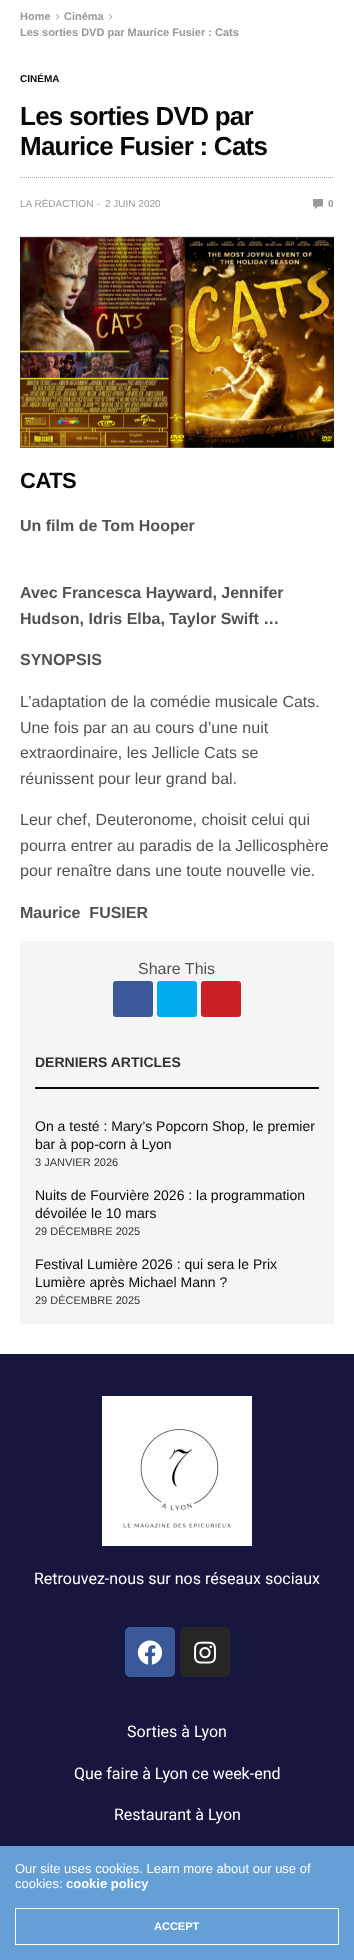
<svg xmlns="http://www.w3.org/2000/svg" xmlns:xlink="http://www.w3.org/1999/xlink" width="354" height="1960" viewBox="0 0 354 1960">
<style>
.cls-1{font:bold 11px Liberation Sans;fill:#989898}
.cls-2{font:bold 10px Liberation Sans;fill:#080808}
.cls-3{font:bold 26px Liberation Sans;letter-spacing:-0.75px;fill:#080808}
.cls-4{font:10px Liberation Sans;fill:#989898}
.cls-5{font:bold 10px Liberation Sans;fill:#989898}
.cls-6{font:bold 22px Liberation Sans;letter-spacing:-0.5px;fill:#080808}
.cls-7{font:bold 16px Liberation Sans;fill:#525252}
.cls-8{font:16px Liberation Sans;fill:#525252}
.cls-9{font:bold 14px Liberation Sans;fill:#313131}
.cls-10{font:14px Liberation Sans;fill:#080808}
.cls-11{font:11px Liberation Sans;fill:#313131}
.cls-12{font:16px Roboto;fill:#ffffff}
.cls-13{font:13px Liberation Sans;fill:#ffffff}
.cls-14{font:bold 13px Liberation Sans;fill:#ffffff}
.cls-15{font:bold 11px Liberation Sans;fill:#ffffff}
</style>
<rect width="100%" height="100%" fill="#ffffff"/>
<image xlink:href="image0.png" x="56" y="14" width="4" height="6"/>
<image xlink:href="image0.png" x="109" y="14" width="4" height="6"/>
<path fill="none" stroke="#a8a8a8" stroke-dasharray="1 1" d="M20 177.5H334"/>
<image xlink:href="image1.png" x="313" y="199" width="10" height="10"/>
<image xlink:href="image2.png" x="20" y="236" width="314" height="212"/>
<rect fill="#f5f5f5" x="20" y="941" width="314" height="383"/>
<rect fill="#3b5998" x="113" y="981" width="40" height="36" rx="3"/>
<rect fill="#00aced" x="157" y="981" width="40" height="36" rx="3"/>
<rect fill="#cb2027" x="201" y="981" width="40" height="36" rx="3"/>
<rect fill="#080808" x="35" y="1087" width="284" height="2"/>
<rect fill="#16163f" x="0" y="1354" width="354" height="492"/>
<image xlink:href="image3.png" x="102" y="1396" width="150" height="150"/>
<rect fill="#3b5998" x="125" y="1627" width="50" height="50" rx="5"/>
<image xlink:href="image4.png" x="137" y="1640" width="26" height="25"/>
<rect fill="#262626" x="180" y="1627" width="50" height="50" rx="5"/>
<image xlink:href="image5.png" x="194" y="1641" width="22" height="23"/>
<rect fill="#649fd6" x="0" y="1846" width="354" height="114"/>
<rect fill="none" stroke="#ffffff" x="15.5" y="1908.5" width="323" height="36"/>
<text class="cls-1" x="20" y="20">Home</text>
<text class="cls-1" x="64" y="20">Cinéma</text>
<text class="cls-1" x="20" y="36">Les sorties DVD par Maurice Fusier : Cats</text>
<text class="cls-2" x="20" y="82">CINÉMA</text>
<text class="cls-3"><tspan x="20" y="125">Les sorties DVD par</tspan><tspan x="20" y="155">Maurice Fusier : Cats</tspan></text>
<text class="cls-4" x="20" y="207">LA RÉDACTION</text>
<text class="cls-4" x="97" y="207">-</text>
<text class="cls-4" x="105" y="207">2 JUIN 2020</text>
<text class="cls-5" x="328" y="207">0</text>
<text class="cls-6" x="20" y="488">CATS</text>
<text class="cls-7" x="20" y="531">Un film de Tom Hooper</text>
<text class="cls-7"><tspan x="20" y="598">Avec Francesca Hayward, Jennifer</tspan><tspan x="20" y="624">Hudson, Idris Elba, Taylor Swift …</tspan></text>
<text class="cls-7" x="20" y="665">SYNOPSIS</text>
<text class="cls-8"><tspan x="20" y="707">L’adaptation de la comédie musicale Cats.</tspan><tspan x="20" y="733">Une fois par an au cours d’une nuit</tspan><tspan x="20" y="758">extraordinaire, les Jellicle Cats se</tspan><tspan x="20" y="784">réunissent pour leur grand bal.</tspan></text>
<text class="cls-8"><tspan x="20" y="825">Leur chef, Deuteronome, choisit celui qui</tspan><tspan x="20" y="851">pourra entrer au paradis de la Jellicosphère</tspan><tspan x="20" y="876">pour renaître dans une toute nouvelle vie.</tspan></text>
<text class="cls-7" xml:space="preserve" x="20" y="918">Maurice  FUSIER</text>
<text class="cls-8" x="138" y="974">Share This</text>
<text class="cls-9" x="35" y="1067">DERNIERS ARTICLES</text>
<text class="cls-10"><tspan x="35" y="1131">On a testé : Mary’s Popcorn Shop, le premier</tspan><tspan x="35" y="1149">bar à pop-corn à Lyon</tspan></text>
<text class="cls-11" x="35" y="1166">3 JANVIER 2026</text>
<text class="cls-10"><tspan x="35" y="1200">Nuits de Fourvière 2026 : la programmation</tspan><tspan x="35" y="1218">dévoilée le 10 mars</tspan></text>
<text class="cls-11" x="35" y="1235">29 DÉCEMBRE 2025</text>
<text class="cls-10"><tspan x="35" y="1269">Festival Lumière 2026 : qui sera le Prix</tspan><tspan x="35" y="1287">Lumière après Michael Mann ?</tspan></text>
<text class="cls-11" x="35" y="1304">29 DÉCEMBRE 2025</text>
<text class="cls-12" x="34" y="1584">Retrouvez-nous sur nos réseaux sociaux</text>
<text class="cls-12" x="127" y="1737">Sorties à Lyon</text>
<text class="cls-12" x="74" y="1779">Que faire à Lyon ce week-end</text>
<text class="cls-12" x="114" y="1820">Restaurant à Lyon</text>
<text class="cls-13"><tspan x="15" y="1873">Our site uses cookies. Learn more about our use of</tspan><tspan x="15" y="1888">cookies:</tspan></text>
<text class="cls-14" x="66" y="1888">cookie policy</text>
<text class="cls-15" x="154" y="1930">ACCEPT</text>
</svg>
